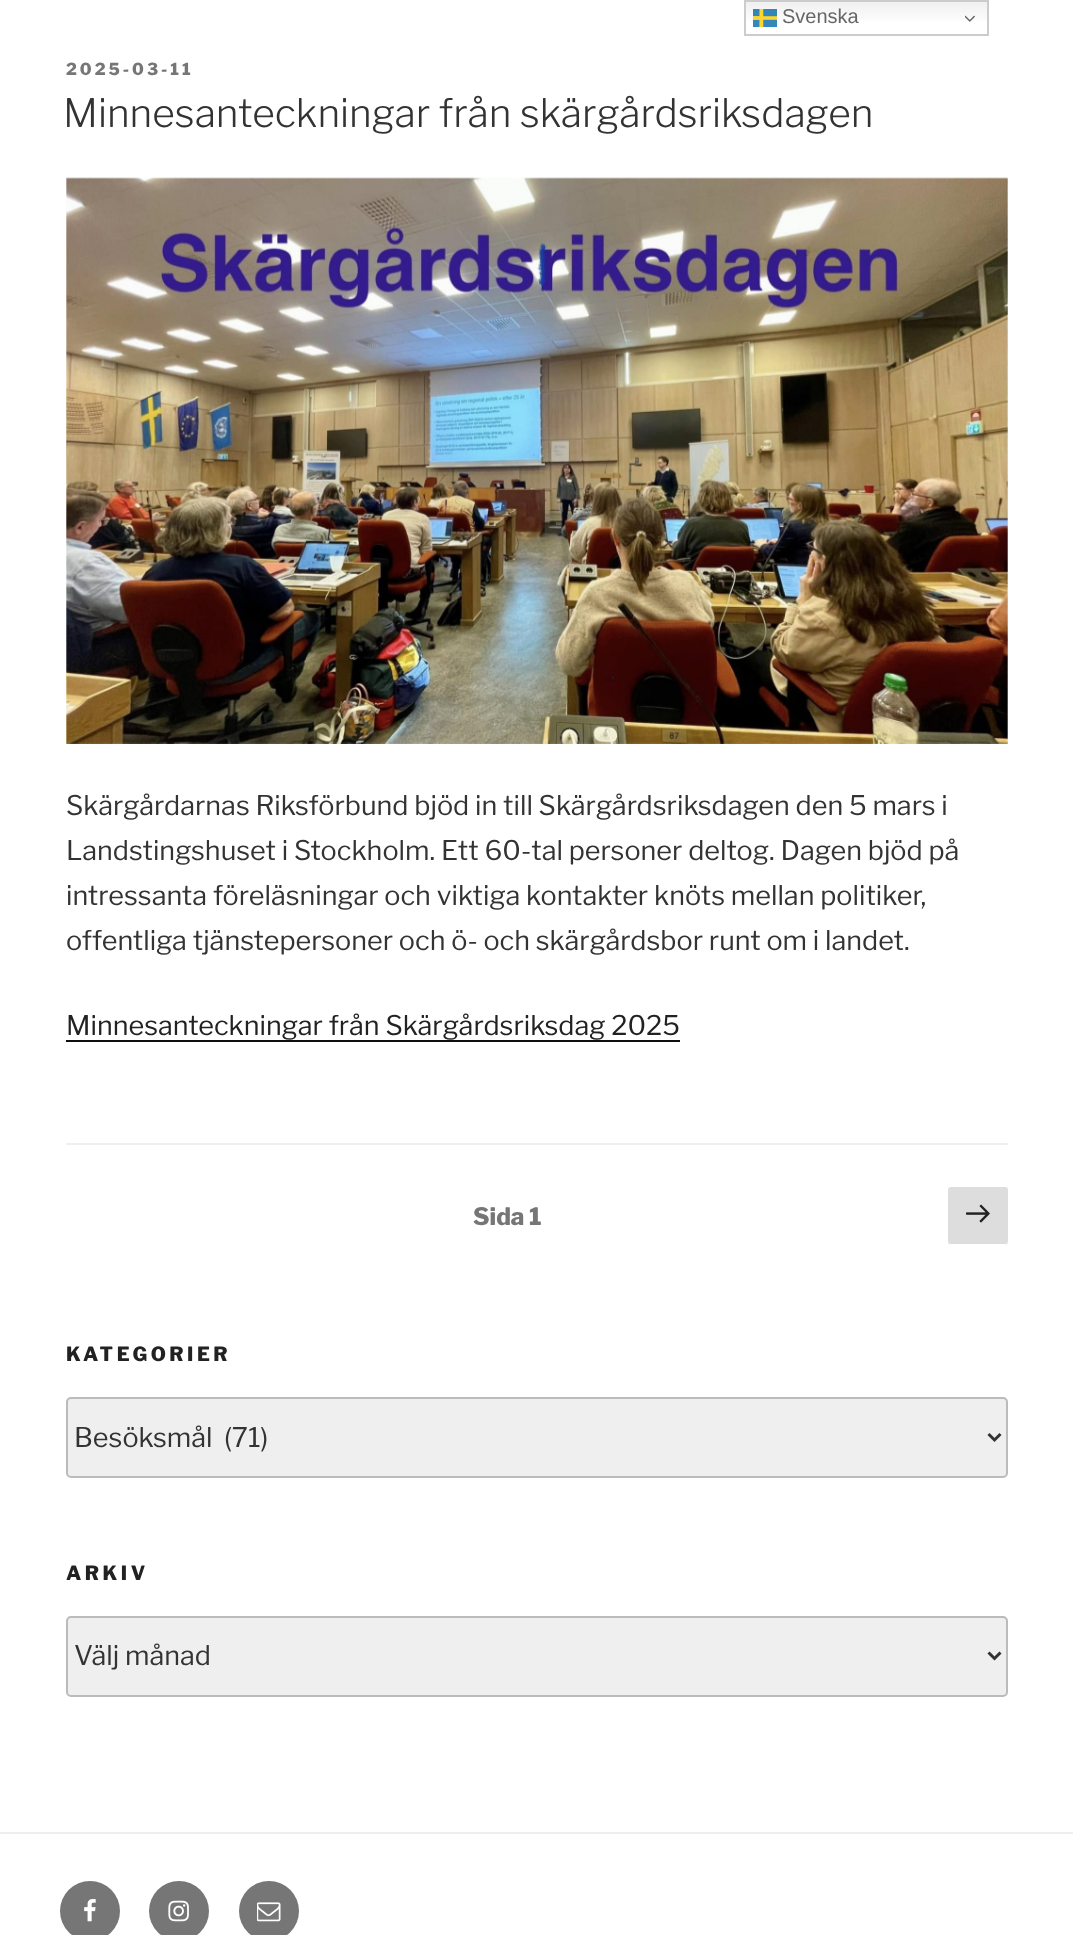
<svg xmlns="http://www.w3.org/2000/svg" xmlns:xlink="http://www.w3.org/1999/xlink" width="1073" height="1935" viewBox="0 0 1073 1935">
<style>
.cls-1{font:20px Liberation Sans;fill:#666666}
.cls-2{font:100 16.5px Libre Franklin;letter-spacing:3px;fill:#767676}
.cls-3{font:100 39px 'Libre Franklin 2';fill:#333333}
.cls-4{font:100 27px 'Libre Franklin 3';fill:#333333}
.cls-5{font:100 27px 'Libre Franklin 3';fill:#222222}
.cls-6{font:100 24px Libre Franklin;fill:#767676}
.cls-7{font:100 19.5px Libre Franklin;letter-spacing:3.5px;fill:#222222}
</style>
<defs>
<linearGradient id="g1" gradientUnits="userSpaceOnUse" x1="866" y1="0" x2="866" y2="36"><stop offset="0" stop-color="#efefef"/><stop offset="0.7" stop-color="#ffffff"/></linearGradient>
</defs>
<rect width="100%" height="100%" fill="#ffffff"/>
<rect fill="url(#g1)" x="746" y="2" width="241" height="19"/>
<rect fill="none" stroke="#cccccc" stroke-width="2" x="745" y="1" width="243" height="34"/>
<image xlink:href="image0.png" x="753" y="9" width="24" height="18"/>
<image xlink:href="image1.png" x="965" y="15" width="10" height="7"/>
<image xlink:href="image2.png" x="66" y="177" width="942" height="567"/>
<rect fill="#0f0f0f" x="66" y="1040" width="614" height="2"/>
<rect fill="#eeeeee" x="66" y="1143" width="942" height="2"/>
<rect fill="#dddddd" x="948" y="1187" width="60" height="58" rx="3"/>
<path fill="#ffffff" d="M948 1240C948 1247 953 1245 960 1245H996C1003 1245 1008 1247 1008 1240C1008 1242 1007 1244 1005 1244H951C949 1244 948 1242 948 1240Z"/>
<image xlink:href="image3.png" x="966" y="1204" width="24" height="19"/>
<rect fill="#efefef" stroke="#bbbbbb" stroke-width="2" x="67" y="1398" width="940" height="79" rx="4"/>
<path fill="none" stroke="#333333" stroke-width="3" d="M988.5 1434L994.5 1440L1000.5 1434"/>
<rect fill="#efefef" stroke="#bbbbbb" stroke-width="2" x="67" y="1617" width="940" height="79" rx="4"/>
<path fill="none" stroke="#333333" stroke-width="3" d="M988.5 1652.5L994.5 1658.5L1000.5 1652.5"/>
<rect fill="#eeeeee" x="0" y="1832" width="1073" height="2"/>
<circle fill="#767676" cx="90" cy="1911" r="30"/>
<image xlink:href="image4.png" x="84" y="1899" width="12" height="23"/>
<circle fill="#767676" cx="179" cy="1911" r="30"/>
<image xlink:href="image5.png" x="168" y="1900" width="21" height="22"/>
<circle fill="#767676" cx="269" cy="1911" r="30"/>
<image xlink:href="image6.png" x="257" y="1902" width="24" height="20"/>
<text class="cls-1" x="782" y="23">Svenska</text>
<text class="cls-2" x="66" y="75">2025-03-11</text>
<text class="cls-3" x="63" y="127">Minnesanteckningar från skärgårdsriksdagen</text>
<text class="cls-4"><tspan x="66" y="815">Skärgårdarnas Riksförbund bjöd in till Skärgårdsriksdagen den 5 mars i</tspan><tspan x="66" y="860">Landstingshuset i Stockholm. Ett 60-tal personer deltog. Dagen bjöd på</tspan><tspan x="66" y="905">intressanta föreläsningar och viktiga kontakter knöts mellan politiker,</tspan><tspan x="66" y="950">offentliga tjänstepersoner och ö- och skärgårdsbor runt om i landet.</tspan></text>
<text class="cls-5" x="66" y="1035">Minnesanteckningar från Skärgårdsriksdag 2025</text>
<text class="cls-6" x="473" y="1225">Sida</text>
<text class="cls-6" x="529" y="1225">1</text>
<text class="cls-7" x="66" y="1361">KATEGORIER</text>
<text class="cls-4" xml:space="preserve" x="74" y="1447">Besöksmål  (71)</text>
<text class="cls-7" x="66" y="1580">ARKIV</text>
<text class="cls-4" x="74" y="1665">Välj månad</text>
</svg>
